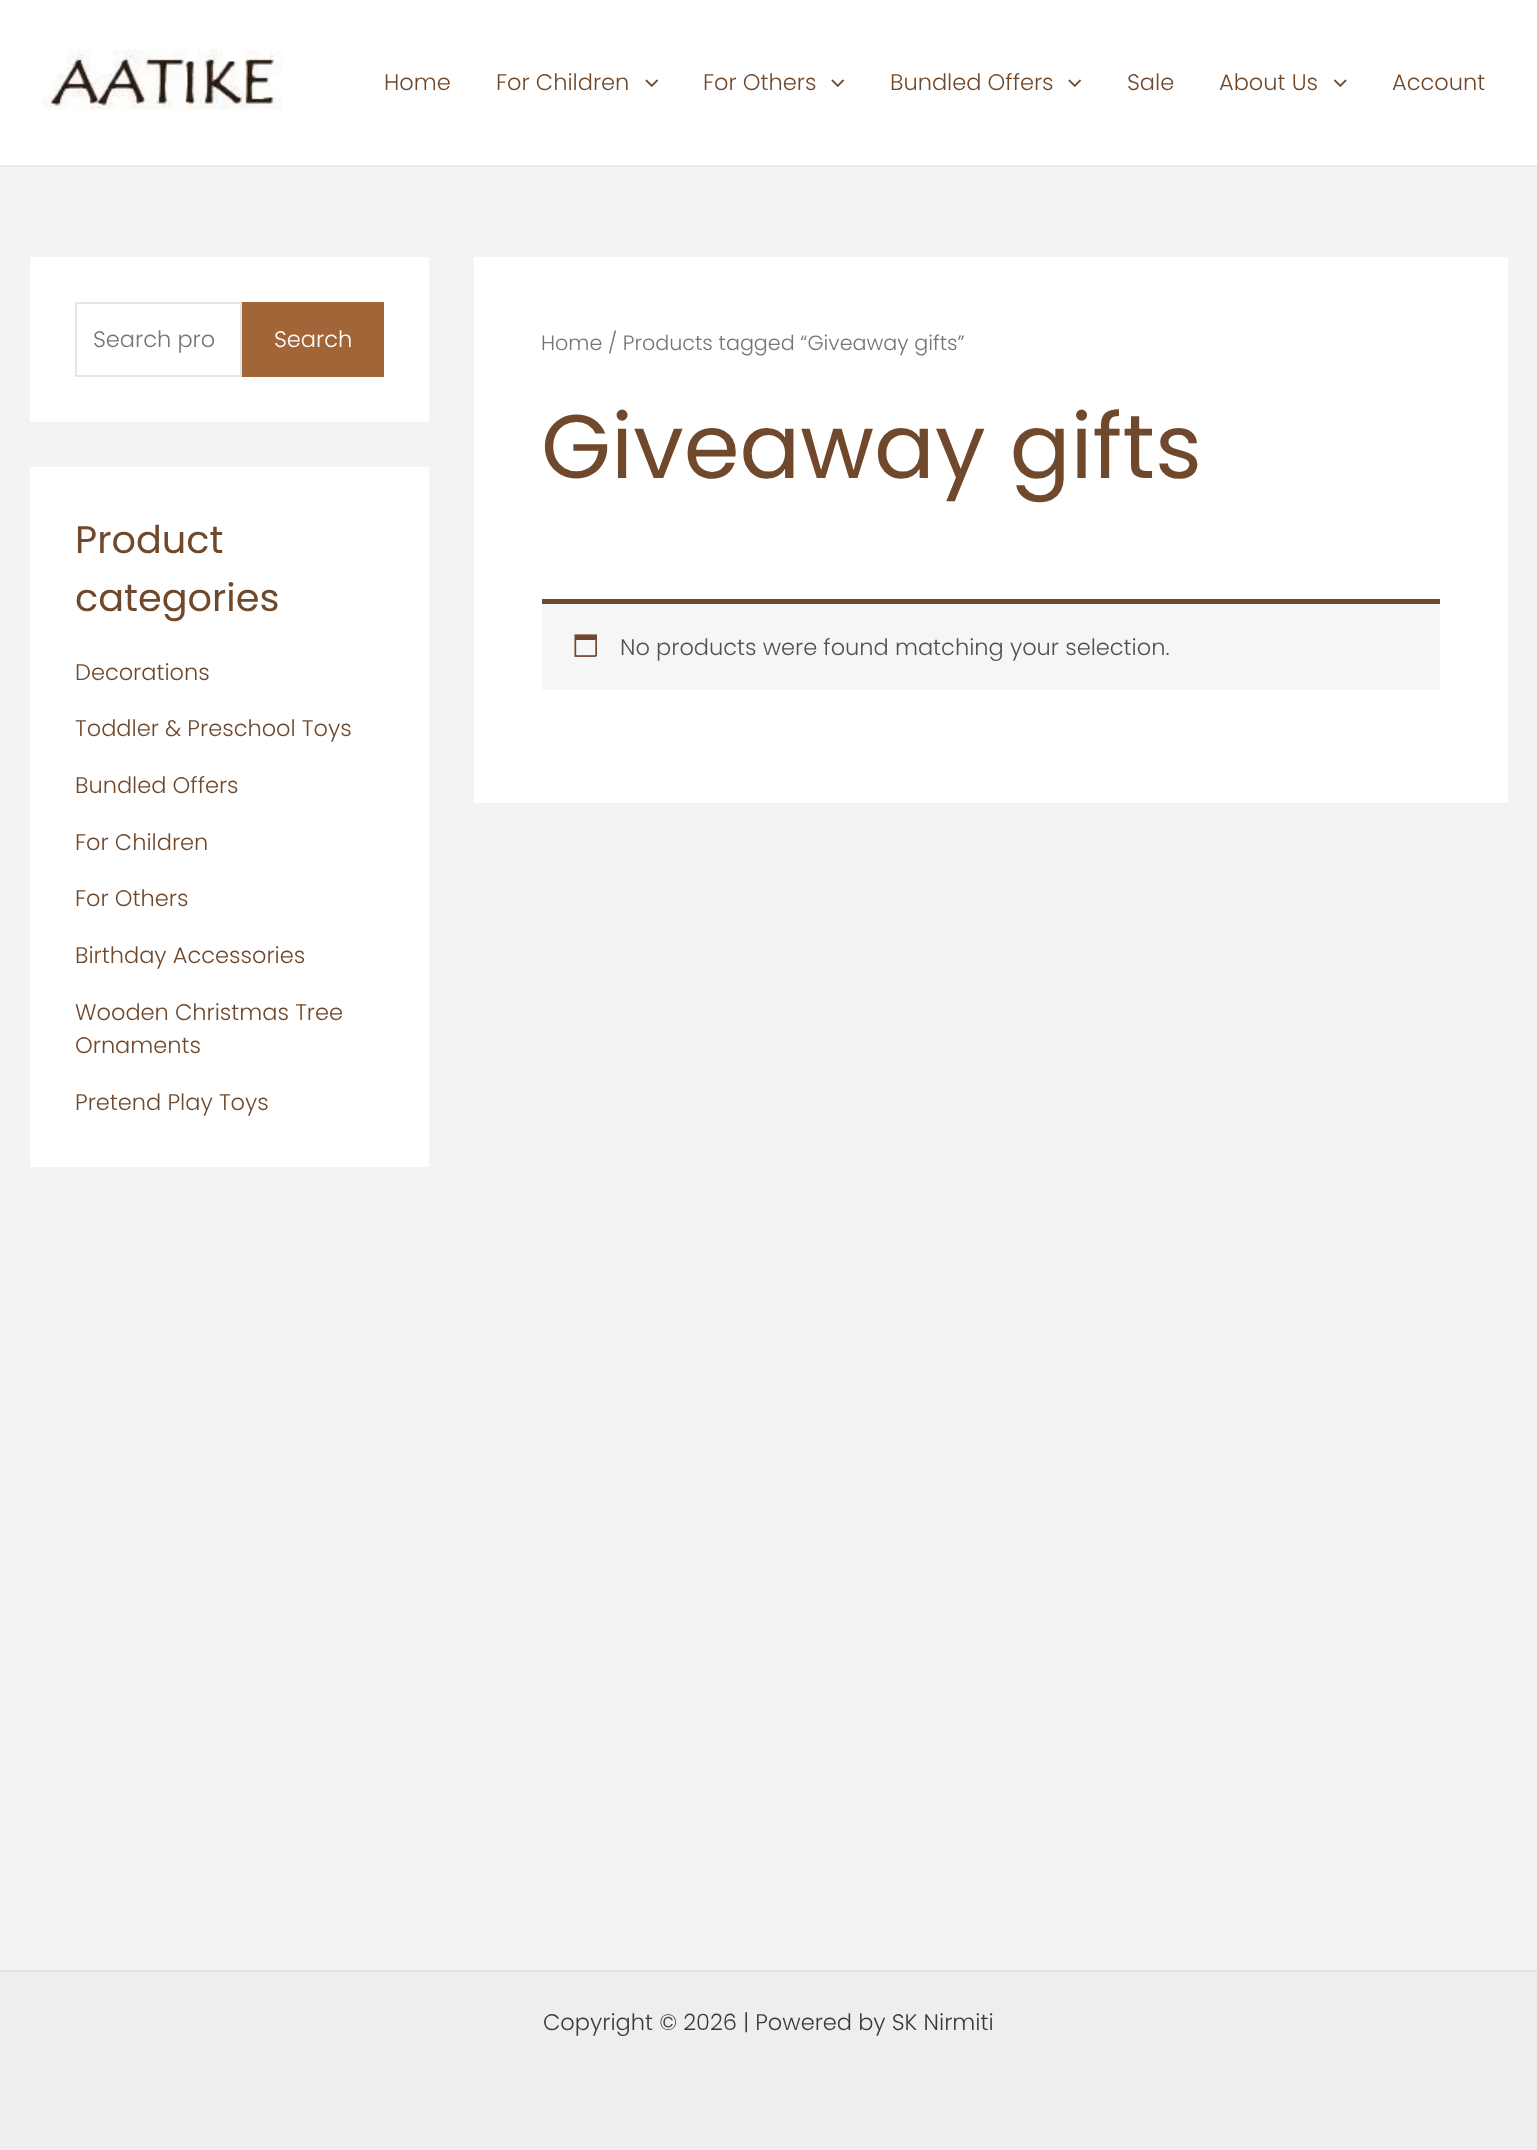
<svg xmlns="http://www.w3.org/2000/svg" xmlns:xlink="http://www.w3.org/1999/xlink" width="1537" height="2150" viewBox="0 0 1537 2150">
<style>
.cls-1{font:300 22.5px Poppins;fill:#70492c}
.cls-2{font:300 22.5px Poppins;fill:#757575}
.cls-3{font:300 22.5px Poppins;fill:#ffffff}
.cls-4{font:38.25px Poppins;fill:#70492c}
.cls-5{font:300 20.7px Poppins;fill:#757575}
.cls-6{font:90px Poppins;fill:#70492c}
.cls-7{font:300 22.5px Poppins;fill:#515151}
.cls-8{font:300 22.5px Poppins;fill:#3a3a3a}
</style>
<rect width="100%" height="100%" fill="#f3f3f3"/>
<rect fill="#ffffff" x="0" y="0" width="1537" height="165"/>
<rect fill="#eaeaea" x="0" y="165" width="1537" height="2"/>
<image xlink:href="image0.png" x="42" y="49" width="240" height="61"/>
<image xlink:href="image1.png" x="645" y="79" width="14" height="8"/>
<image xlink:href="image1.png" x="831" y="79" width="14" height="8"/>
<image xlink:href="image1.png" x="1068" y="79" width="14" height="8"/>
<image xlink:href="image2.png" x="1334" y="79" width="13" height="8"/>
<rect fill="#ffffff" x="30" y="257" width="399" height="165"/>
<rect fill="none" stroke="#e5e5e5" stroke-width="2" x="76" y="303" width="165" height="73"/>
<rect fill="#a16538" x="242" y="302" width="142" height="75"/>
<rect fill="#ffffff" x="30" y="467" width="399" height="700"/>
<rect fill="#ffffff" x="474" y="257" width="1034" height="546"/>
<rect fill="#f7f6f7" x="542" y="604" width="898" height="86"/>
<rect fill="#70492c" x="542" y="599" width="898" height="5"/>
<image xlink:href="image3.png" x="574" y="634" width="23" height="23"/>
<rect fill="#eeeeee" x="0" y="1972" width="1537" height="178"/>
<rect fill="#e5e5e5" x="0" y="1970" width="1537" height="2"/>
<text class="cls-1" x="384" y="90">Home</text>
<text class="cls-1" x="496" y="90">For Children</text>
<text class="cls-1" x="703" y="90">For Others</text>
<text class="cls-1" x="890" y="90">Bundled Offers</text>
<text class="cls-1" x="1127" y="90">Sale</text>
<text class="cls-1" x="1219" y="90">About Us</text>
<text class="cls-1" x="1392" y="90">Account</text>
<text class="cls-2" x="93" y="347">Search pro</text>
<text class="cls-3" x="274" y="347">Search</text>
<text class="cls-4"><tspan x="75" y="553">Product</tspan><tspan x="75" y="611">categories</tspan></text>
<text class="cls-1" x="75" y="680">Decorations</text>
<text class="cls-1" x="75" y="736">Toddler &amp; Preschool Toys</text>
<text class="cls-1" x="75" y="793">Bundled Offers</text>
<text class="cls-1" x="75" y="850">For Children</text>
<text class="cls-1" x="75" y="906">For Others</text>
<text class="cls-1" x="75" y="963">Birthday Accessories</text>
<text class="cls-1"><tspan x="75" y="1020">Wooden Christmas Tree</tspan><tspan x="75" y="1053">Ornaments</tspan></text>
<text class="cls-1" x="75" y="1110">Pretend Play Toys</text>
<text class="cls-5" x="541" y="350">Home / Products tagged “Giveaway gifts”</text>
<text class="cls-6" x="541" y="478">Giveaway gifts</text>
<text class="cls-7" x="620" y="655">No products were found matching your selection.</text>
<text class="cls-8" x="543" y="2030">Copyright © 2026 | Powered by SK Nirmiti</text>
</svg>
